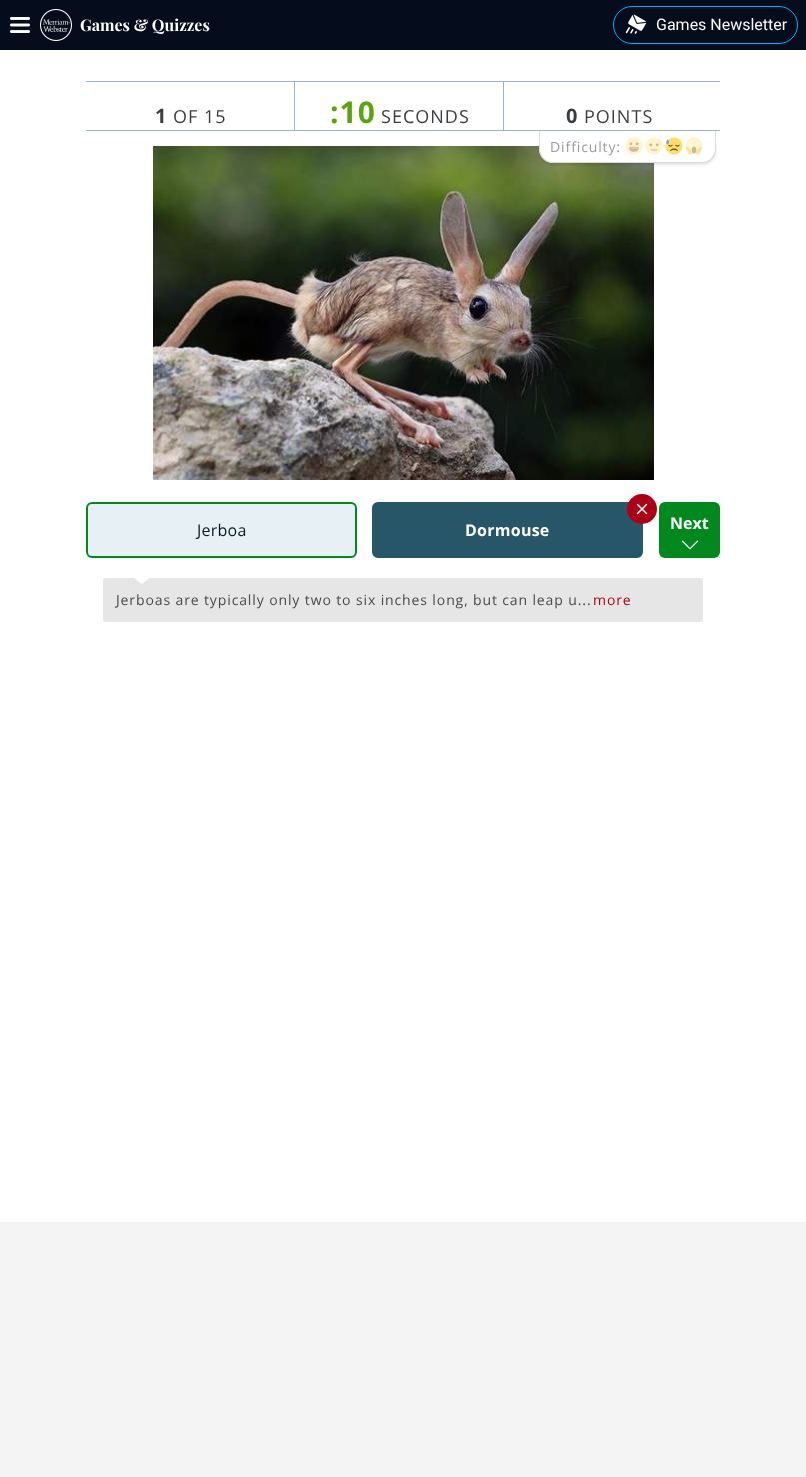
<svg xmlns="http://www.w3.org/2000/svg" xmlns:xlink="http://www.w3.org/1999/xlink" width="806" height="1477" viewBox="0 0 806 1477">
<style>
.cls-1{font:bold 16px Playfair Display;fill:#ffffff}
.cls-2{font:16px Roboto;fill:#fafaf6}
.cls-3{font:bold 20px Open Sans;letter-spacing:1px;fill:#3b3e41}
.cls-4{font:18px Open Sans;letter-spacing:1px;fill:#3b3e41}
.cls-5{font:bold 30px Open Sans;letter-spacing:1px;fill:#5ca40c}
.cls-6{font:14px Open Sans;letter-spacing:0.88px;fill:#9b9b9b}
.cls-7{font:16px Open Sans;letter-spacing:0.25px;fill:#0a1b27}
.cls-8{font:bold 16px Open Sans;letter-spacing:0.25px;fill:#ffffff}
.cls-9{font:bold 16px Open Sans;fill:#ffffff}
.cls-10{font:14px Open Sans;letter-spacing:0.88px;fill:#4a4a4a}
.cls-11{font:14px Open Sans;letter-spacing:0.88px;fill:#ae0015}
</style>
<rect width="100%" height="100%" fill="#f4f4f4"/>
<rect fill="#050d1c" x="0" y="0" width="806" height="50"/>
<image xlink:href="image0.png" x="10" y="17" width="20" height="16"/>
<image xlink:href="image1.png" x="40" y="9" width="32" height="32"/>
<rect fill="none" stroke="#00b2ff" x="613.5" y="6.5" width="184" height="37" rx="18.5"/>
<image xlink:href="image2.png" x="625" y="14" width="22" height="20"/>
<rect fill="#ffffff" x="0" y="50" width="806" height="1172"/>
<rect fill="#97b7c9" x="86" y="81" width="634" height="1"/>
<rect fill="#97b7c9" x="86" y="130" width="634" height="1"/>
<rect fill="#97b7c9" x="294" y="82" width="1" height="48"/>
<rect fill="#97b7c9" x="503" y="82" width="1" height="48"/>
<image xlink:href="image7.png" x="153" y="146" width="501" height="334"/>
<rect fill="#000000" fill-opacity="0.1" filter="blur(1px)" x="539" y="133" width="177" height="32" rx="14"/>
<path fill="#ffffff" d="M539 131H716V149C716 156.5 709.5 163 702 163H553C545.5 163 539 156.5 539 149Z"/>
<path fill="#dadada" fill-rule="evenodd" d="M539 131H716V149C716 157 710 163 702 163H553C545 163 539 157 539 149ZM540 131H715V149C715 156 709 162 702 162H553C546 162 540 156 540 149Z"/>
<image xlink:href="image3.png" x="625" y="137" width="18" height="18"/>
<image xlink:href="image4.png" x="645" y="137" width="18" height="18"/>
<image xlink:href="image5.png" x="665" y="137" width="18" height="18"/>
<image xlink:href="image6.png" x="685" y="137" width="18" height="18"/>
<rect fill="#e7f0f4" stroke="#01891e" stroke-width="2" x="87" y="503" width="269" height="54" rx="5"/>
<rect fill="#265667" stroke="#265667" stroke-width="2" x="373" y="503" width="269" height="54" rx="5"/>
<circle fill="#ae0015" cx="642" cy="509" r="15"/>
<image xlink:href="image8.png" x="636" y="503" width="12" height="12"/>
<rect fill="#01891e" x="659" y="502" width="61" height="56" rx="6"/>
<image xlink:href="image9.png" x="681" y="540" width="18" height="10"/>
<rect fill="#e6e6e6" x="103" y="578" width="600" height="44" rx="3"/>
<path fill="#ffffff" d="M134 578H150L142 584Z"/>
<text class="cls-1" x="80" y="31">Games &amp; Quizzes</text>
<text class="cls-2" x="656" y="30">Games Newsletter</text>
<text class="cls-3" x="155" y="123">1</text>
<text class="cls-4" x="173" y="123">OF 15</text>
<text class="cls-5" x="330" y="123">:10</text>
<text class="cls-4" x="381" y="123">SECONDS</text>
<text class="cls-3" x="566" y="123">0</text>
<text class="cls-4" x="584" y="123">POINTS</text>
<text class="cls-6" x="550" y="152">Difficulty:</text>
<text class="cls-7" x="197" y="536">Jerboa</text>
<text class="cls-8" x="465" y="536">Dormouse</text>
<text class="cls-9" x="670" y="529">Next</text>
<text class="cls-10" x="116" y="605">Jerboas are typically only two to six inches long, but can leap u...</text>
<text class="cls-11" x="593" y="605">more</text>
</svg>
